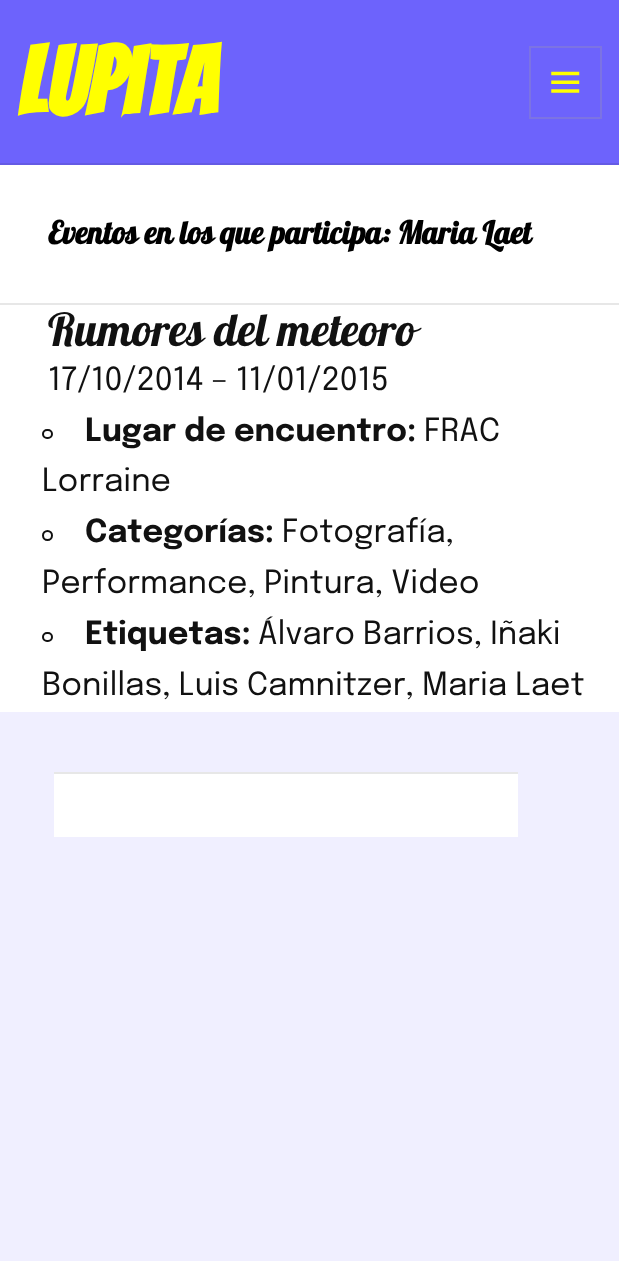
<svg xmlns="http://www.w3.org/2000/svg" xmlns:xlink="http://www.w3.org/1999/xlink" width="619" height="1261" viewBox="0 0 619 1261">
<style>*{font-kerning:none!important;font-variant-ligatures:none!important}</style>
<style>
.cls-1{font:bold 95px Bangers;fill:#ffff00}
.cls-2{font:bold 31.5px Lobster;fill:#000000}
.cls-3{font:45.5px Lobster;fill:#111111}
.cls-4{font:31.75px Epilogue;fill:#111111}
.cls-5{font:bold 31.75px Epilogue;fill:#111111}
</style>
<rect width="100%" height="100%" fill="#f0efff"/>
<rect fill="#6d63fc" x="0" y="0" width="619" height="163"/>
<rect fill="#645be4" x="0" y="163" width="619" height="2"/>
<rect fill="none" stroke="#7c73e3" stroke-width="2" x="530" y="47" width="71" height="71"/>
<image xlink:href="image0.png" x="551" y="71" width="29" height="22"/>
<rect fill="#ffffff" x="0" y="165" width="619" height="138"/>
<rect fill="#e7e7e7" x="0" y="303" width="619" height="2"/>
<rect fill="#ffffff" x="0" y="305" width="619" height="407"/>
<rect fill="none" stroke="#111111" stroke-width="2" x="43" y="430" width="9" height="8" rx="4"/>
<circle fill="none" stroke="#111111" stroke-width="2" cx="47.5" cy="535.5" r="4.5"/>
<rect fill="none" stroke="#111111" stroke-width="2" x="43" y="633" width="9" height="8" rx="4"/>
<rect fill="#ffffff" x="54" y="774" width="464" height="63"/>
<rect fill="#e7e7e7" x="54" y="772" width="464" height="2"/>
<text class="cls-1" x="17" y="115">Lupita</text>
<text class="cls-2" x="48" y="244">Eventos en los</text>
<text class="cls-2" x="220" y="244">que participa: Maria Laet</text>
<text class="cls-3" x="48" y="346">Rumores del meteoro</text>
<text class="cls-4" x="48" y="390">17/10/2014 – 11/01/2015</text>
<text class="cls-5" x="85" y="441">Lugar de encuentro:</text>
<text class="cls-4" x="424" y="441">FRAC</text>
<text class="cls-4" x="42" y="491">Lorraine</text>
<text class="cls-5" x="85" y="542">Categorías:</text>
<text class="cls-4" x="282" y="542">Fotografía,</text>
<text class="cls-4" x="42" y="593">Performance, Pintura, Video</text>
<text class="cls-5" x="85" y="644">Etiquetas:</text>
<text class="cls-4" x="258" y="644">Álvaro Barrios, Iñaki</text>
<text class="cls-4" x="42" y="695">Bonillas, Luis Camnitzer, Maria Laet</text>
</svg>
